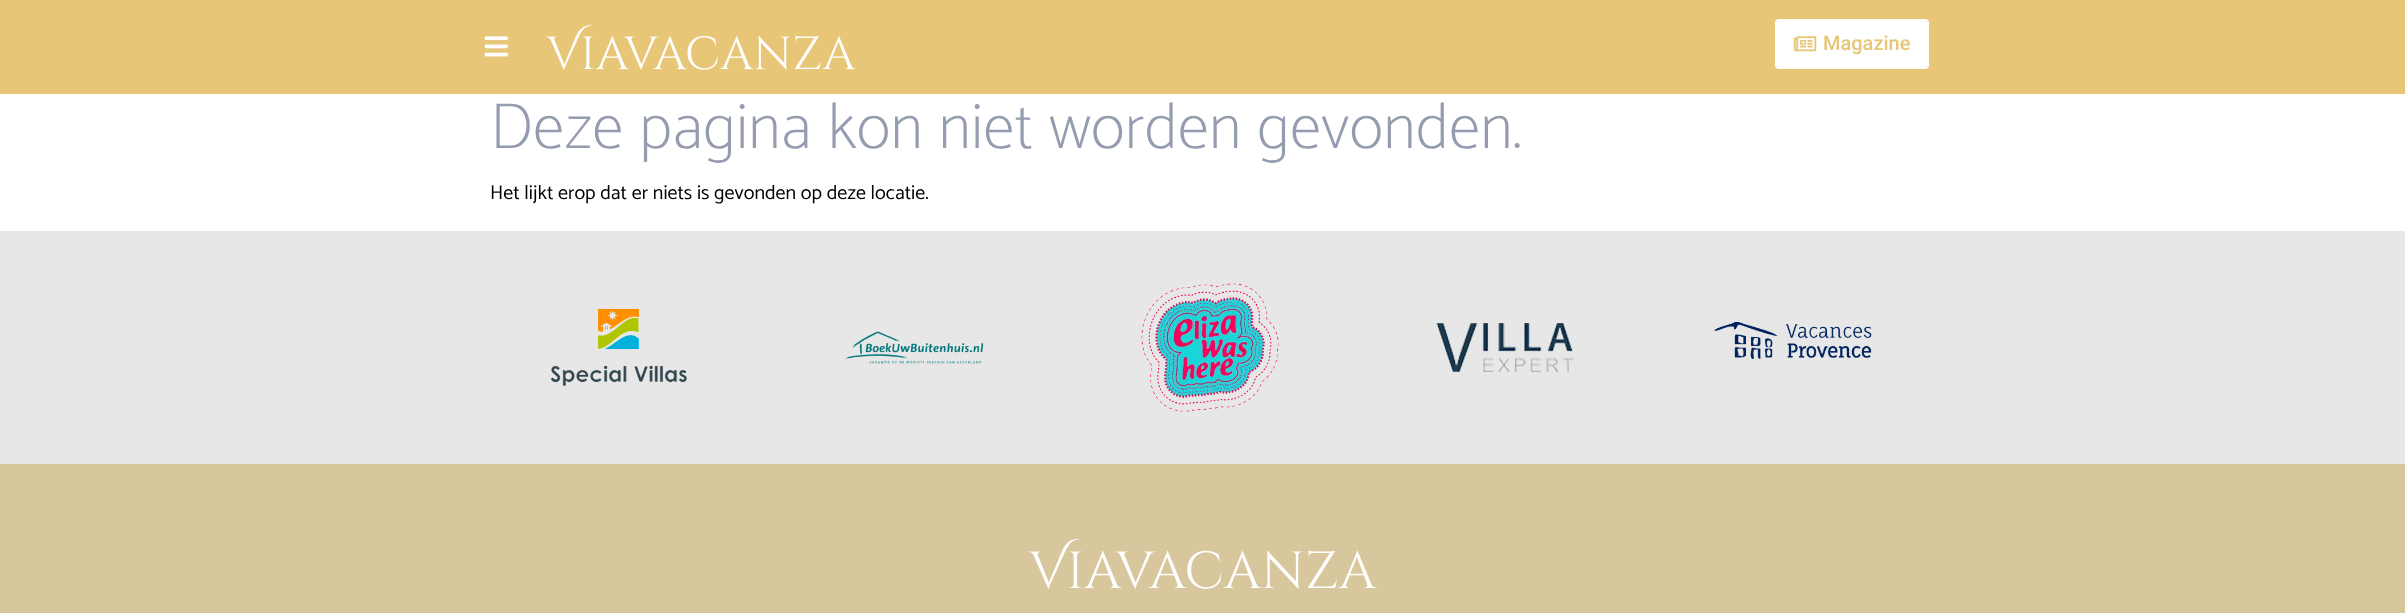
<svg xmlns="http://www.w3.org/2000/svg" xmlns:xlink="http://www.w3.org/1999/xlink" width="2405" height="613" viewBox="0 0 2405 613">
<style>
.cls-1{font:500 20px Roboto;fill:#e7c677}
.cls-2{font:100 65px Catamaran;fill:#959caf}
.cls-3{font:20px Catamaran;fill:#000000}
</style>
<rect width="100%" height="100%" fill="#ffffff"/>
<rect fill="#e7c677" x="0" y="0" width="2405" height="94"/>
<image xlink:href="image0.png" x="484" y="36" width="24" height="21"/>
<image xlink:href="image1.png" x="546" y="25" width="309" height="45"/>
<rect fill="#ffffff" x="1775" y="19" width="154" height="50" rx="4"/>
<image xlink:href="image2.png" x="1793" y="36" width="24" height="16"/>
<rect fill="#e7e7e7" x="0" y="231" width="2405" height="233"/>
<image xlink:href="image3.png" x="550" y="308" width="137" height="78"/>
<image xlink:href="image4.png" x="845" y="331" width="139" height="33"/>
<image xlink:href="image5.png" x="1141" y="283" width="138" height="129"/>
<image xlink:href="image6.png" x="1436" y="323" width="138" height="49"/>
<image xlink:href="image7.png" x="1714" y="322" width="158" height="37"/>
<rect fill="#d8c79c" x="0" y="464" width="2405" height="149"/>
<image xlink:href="image8.png" x="1028" y="539" width="349" height="50"/>
<text class="cls-1" x="1823" y="50">Magazine</text>
<text class="cls-2" x="490" y="148">Deze pagina kon niet worden gevonden.</text>
<text class="cls-3" x="490" y="199">Het lijkt erop dat er niets is gevonden op deze locatie.</text>
</svg>
